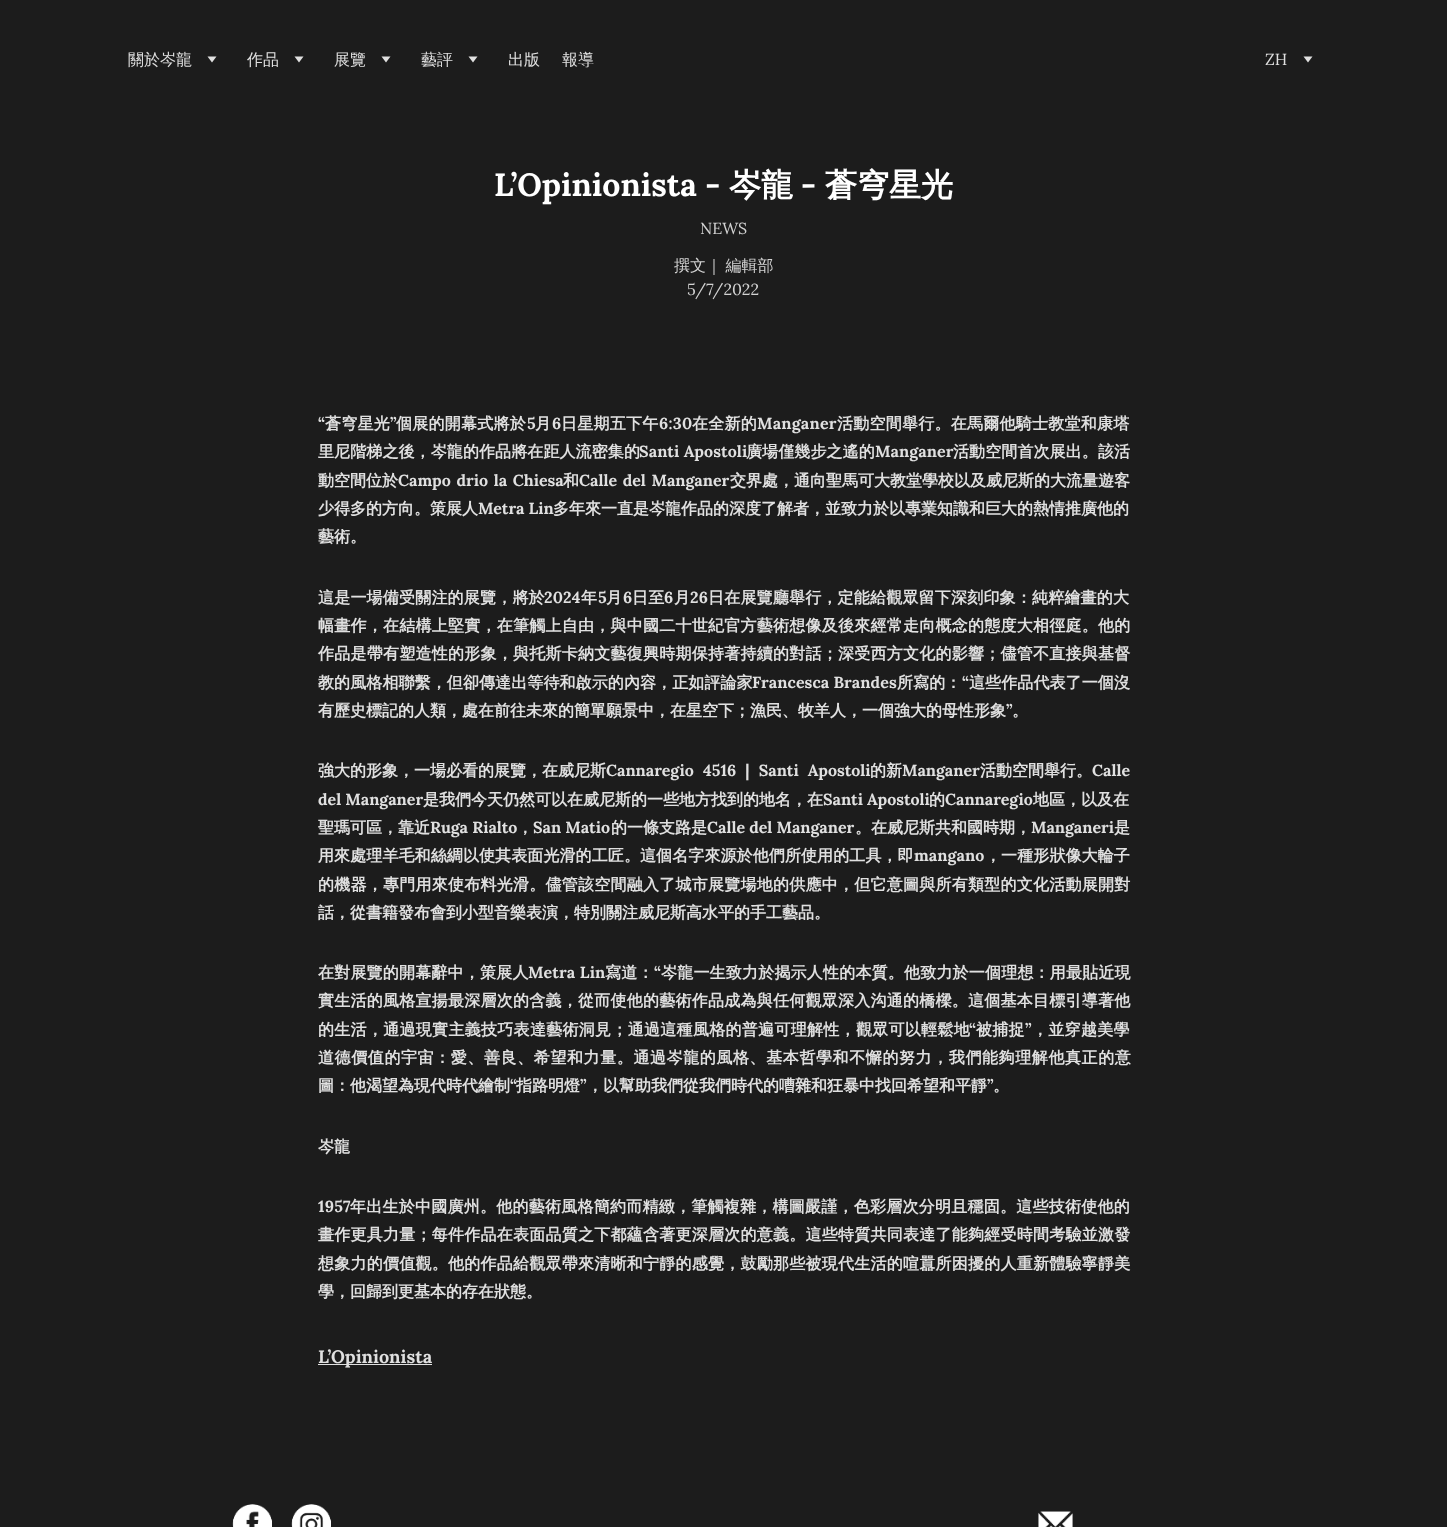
<svg xmlns="http://www.w3.org/2000/svg" xmlns:xlink="http://www.w3.org/1999/xlink" width="1447" height="1527" viewBox="0 0 1447 1527">
<style>
.cls-1{font:500 16px WenQuanYi Zen Hei;fill:#e0e0e0}
.cls-2{font:16px Lora;fill:#e0e0e0}
.cls-3{font:bold 32px Lora;fill:#ffffff}
.cls-4{font:bold 32px WenQuanYi Zen Hei;fill:#ffffff}
.cls-5{font:16px Lora;fill:#d2d2d2}
.cls-6{font:500 16px WenQuanYi Zen Hei;fill:#d2d2d2}
.cls-7{font:bold 16px Lora;letter-spacing:0.25px;fill:#e0e0e0}
.cls-8{font:bold 16px WenQuanYi Zen Hei;letter-spacing:0.25px;fill:#e0e0e0}
.cls-9{font:bold 16px WenQuanYi Zen Hei;letter-spacing:0.1px;fill:#e0e0e0}
.cls-10{font:bold 16px Lora;letter-spacing:0.1px;fill:#e0e0e0}
.cls-11{font:bold 16px WenQuanYi Zen Hei;fill:#e0e0e0}
.cls-12{font:bold 16px Lora;fill:#e0e0e0}
.cls-13{font:bold 16px WenQuanYi Zen Hei;letter-spacing:0.2px;fill:#e0e0e0}
.cls-14{font:bold 16px Lora;letter-spacing:0.2px;fill:#e0e0e0}
.cls-15{font:bold 16px WenQuanYi Zen Hei;letter-spacing:0.3px;fill:#e0e0e0}
.cls-16{font:bold 16px Lora;letter-spacing:0.3px;fill:#e0e0e0}
.cls-17{font:bold 16px WenQuanYi Zen Hei;letter-spacing:0.6px;fill:#e0e0e0}
.cls-18{font:bold 18px Lora;fill:#e0e0e0}
</style>
<rect width="100%" height="100%" fill="#1c1c1c"/>
<path fill="#e0e0e0" d="M212 62.5L207.5 56.5H216.5Z"/>
<path fill="#e0e0e0" d="M299 62.5L294.5 56.5H303.5Z"/>
<path fill="#e0e0e0" d="M386 62.5L381.5 56.5H390.5Z"/>
<path fill="#e0e0e0" d="M473 62.5L468.5 56.5H477.5Z"/>
<path fill="#e0e0e0" d="M1308 62.5L1303.5 56.5H1312.5Z"/>
<rect fill="#e0e0e0" x="318" y="1364" width="114" height="1"/>
<image xlink:href="image0.png" x="232" y="1504" width="40" height="23"/>
<image xlink:href="image1.png" x="291" y="1504" width="40" height="23"/>
<image xlink:href="image2.png" x="1038" y="1511" width="35" height="16"/>
<text class="cls-1" x="128" y="65">關於岑龍</text>
<text class="cls-1" x="247" y="65">作品</text>
<text class="cls-1" x="334" y="65">展覽</text>
<text class="cls-1" x="421" y="65">藝評</text>
<text class="cls-1" x="508" y="65">出版</text>
<text class="cls-1" x="562" y="65">報導</text>
<text class="cls-2" x="1265" y="65">ZH</text>
<text class="cls-3" x="494" y="196">L’Opinionista -</text>
<text class="cls-4" x="729" y="196">岑龍</text>
<text class="cls-3" x="801" y="196">-</text>
<text class="cls-4" x="825" y="196">蒼穹星光</text>
<text class="cls-5" x="700" y="234">NEWS</text>
<text class="cls-6" x="674" y="271" word-spacing="-1">撰文｜ 編輯部</text>
<text class="cls-5" x="687" y="295">5/7/2022</text>
<text class="cls-7" x="318" y="429">“</text>
<text class="cls-8" x="325" y="429">蒼穹星光</text>
<text class="cls-7" x="390" y="429">”</text>
<text class="cls-8" x="396" y="429">個展的開幕式將於</text>
<text class="cls-7" x="527" y="429">5</text>
<text class="cls-8" x="535" y="429">月</text>
<text class="cls-7" x="552" y="429">6</text>
<text class="cls-8" x="561" y="429">日星期五下午</text>
<text class="cls-7" x="659" y="429">6:30</text>
<text class="cls-8" x="692" y="429">在全新的</text>
<text class="cls-7" x="757" y="429">Manganer</text>
<text class="cls-8" x="837" y="429">活動空間舉行。在馬爾他騎士教堂和康塔</text>
<text class="cls-9" x="318" y="457">里尼階梯之後，岑龍的作品將在距人流密集的</text>
<text class="cls-10" x="639" y="457">Santi Apostoli</text>
<text class="cls-9" x="746" y="457">廣場僅幾步之遙的</text>
<text class="cls-10" x="875" y="457">Manganer</text>
<text class="cls-9" x="953" y="457">活動空間首次展出。該活</text>
<text class="cls-11" x="318" y="486">動空間位於</text>
<text class="cls-12" x="398" y="486" word-spacing="1.5">Campo drio la Chiesa</text>
<text class="cls-11" x="563" y="486">和</text>
<text class="cls-12" x="579" y="486" word-spacing="1.5">Calle del Manganer</text>
<text class="cls-11" x="730" y="486">交界處，通向聖馬可大教堂學校以及威尼斯的大流量遊客</text>
<text class="cls-11" x="318" y="514">少得多的方向。策展人</text>
<text class="cls-12" x="478" y="514">Metra Lin</text>
<text class="cls-11" x="553" y="514">多年來一直是岑龍作品的深度了解者，並致力於以專業知識和巨大的熱情推廣他的</text>
<text class="cls-11" x="318" y="542">藝術。</text>
<text class="cls-13" x="318" y="603">這是一場備受關注的展覽，將於</text>
<text class="cls-14" x="544" y="603">2024</text>
<text class="cls-13" x="581" y="603">年</text>
<text class="cls-14" x="598" y="603">5</text>
<text class="cls-13" x="606" y="603">月</text>
<text class="cls-14" x="623" y="603">6</text>
<text class="cls-13" x="632" y="603">日至</text>
<text class="cls-14" x="664" y="603">6</text>
<text class="cls-13" x="674" y="603">月</text>
<text class="cls-14" x="690" y="603">26</text>
<text class="cls-13" x="708" y="603">日在展覽廳舉行，定能給觀眾留下深刻印象：純粹繪畫的大</text>
<text class="cls-8"><tspan x="318" y="631">幅畫作，在結構上堅實，在筆觸上自由，與中國二十世紀官方藝術想像及後來經常走向概念的態度大相徑庭。他的</tspan><tspan x="318" y="659">作品是帶有塑造性的形象，與托斯卡納文藝復興時期保持著持續的對話；深受西方文化的影響；儘管不直接與基督</tspan></text>
<text class="cls-9" x="318" y="688">教的風格相聯繫，但卻傳達出等待和啟示的內容，正如評論家</text>
<text class="cls-10" x="752" y="688">Francesca Brandes</text>
<text class="cls-9" x="897" y="688">所寫的：</text>
<text class="cls-10" x="962" y="688">“</text>
<text class="cls-9" x="969" y="688">這些作品代表了一個沒</text>
<text class="cls-11" x="318" y="716">有歷史標記的人類，處在前往未來的簡單願景中，在星空下；漁民、牧羊人，一個強大的母性形象</text>
<text class="cls-12" x="1006" y="716">”</text>
<text class="cls-11" x="1012" y="716">。</text>
<text class="cls-11" x="318" y="776">強大的形象，一場必看的展覽，在威尼斯</text>
<text class="cls-12" x="606" y="776" word-spacing="5">Cannaregio 4516 | Santi Apostoli</text>
<text class="cls-11" x="870" y="776">的新</text>
<text class="cls-12" x="902" y="776">Manganer</text>
<text class="cls-11" x="980" y="776">活動空間舉行。</text>
<text class="cls-12" x="1092" y="776">Calle</text>
<text class="cls-12" x="318" y="805">del Manganer</text>
<text class="cls-11" x="423" y="805">是我們今天仍然可以在威尼斯的一些地方找到的地名，在</text>
<text class="cls-12" x="823" y="805">Santi Apostoli</text>
<text class="cls-11" x="929" y="805">的</text>
<text class="cls-12" x="945" y="805">Cannaregio</text>
<text class="cls-11" x="1033" y="805">地區，以及在</text>
<text class="cls-11" x="318" y="833">聖瑪可區，靠近</text>
<text class="cls-12" x="430" y="833">Ruga Rialto</text>
<text class="cls-11" x="517" y="833">，</text>
<text class="cls-12" x="533" y="833">San Matio</text>
<text class="cls-11" x="611" y="833">的一條支路是</text>
<text class="cls-12" x="707" y="833">Calle del Manganer</text>
<text class="cls-11" x="855" y="833">。在威尼斯共和國時期，</text>
<text class="cls-12" x="1031" y="833">Manganeri</text>
<text class="cls-11" x="1114" y="833">是</text>
<text class="cls-9" x="318" y="861">用來處理羊毛和絲綢以使其表面光滑的工匠。這個名字來源於他們所使用的工具，即</text>
<text class="cls-10" x="914" y="861">mangano</text>
<text class="cls-9" x="985" y="861">，一種形狀像大輪子</text>
<text class="cls-8" x="318" y="890">的機器，專門用來使布料光滑。儘管該空間融入了城市展覽場地的供應中，但它意圖與所有類型的文化活動展開對</text>
<text class="cls-11" x="318" y="918">話，從書籍發布會到小型音樂表演，特別關注威尼斯高水平的手工藝品。</text>
<text class="cls-13" x="318" y="978">在對展覽的開幕辭中，策展人</text>
<text class="cls-14" x="528" y="978">Metra Lin</text>
<text class="cls-13" x="605" y="978">寫道：</text>
<text class="cls-14" x="654" y="978">“</text>
<text class="cls-13" x="661" y="978">岑龍一生致力於揭示人性的本質。他致力於一個理想：用最貼近現</text>
<text class="cls-8" x="318" y="1006">實生活的風格宣揚最深層次的含義，從而使他的藝術作品成為與任何觀眾深入沟通的橋樑。這個基本目標引導著他</text>
<text class="cls-15" x="318" y="1035">的生活，通過現實主義技巧表達藝術洞見；通過這種風格的普遍可理解性，觀眾可以輕鬆地</text>
<text class="cls-16" x="969" y="1035">“</text>
<text class="cls-15" x="976" y="1035">被捕捉</text>
<text class="cls-16" x="1025" y="1035">”</text>
<text class="cls-15" x="1032" y="1035">，並穿越美學</text>
<text class="cls-17" x="318" y="1063">道德價值的宇宙：愛、善良、希望和力量。通過岑龍的風格、基本哲學和不懈的努力，我們能夠理解他真正的意</text>
<text class="cls-11" x="318" y="1091">圖：他渴望為現代時代繪制</text>
<text class="cls-12" x="510" y="1091">“</text>
<text class="cls-11" x="516" y="1091">指路明燈</text>
<text class="cls-12" x="580" y="1091">”</text>
<text class="cls-11" x="587" y="1091">，以幫助我們從我們時代的嘈雜和狂暴中找回希望和平靜</text>
<text class="cls-12" x="987" y="1091">”</text>
<text class="cls-11" x="993" y="1091">。</text>
<text class="cls-11" x="318" y="1152">岑龍</text>
<text class="cls-7" x="318" y="1212">1957</text>
<text class="cls-8" x="350" y="1212">年出生於中國廣州。他的藝術風格簡約而精緻，筆觸複雜，構圖嚴謹，色彩層次分明且穩固。這些技術使他的</text>
<text class="cls-8"><tspan x="318" y="1240">畫作更具力量；每件作品在表面品質之下都蘊含著更深層次的意義。這些特質共同表達了能夠經受時間考驗並激發</tspan><tspan x="318" y="1269">想象力的價值觀。他的作品給觀眾帶來清晰和宁靜的感覺，鼓勵那些被現代生活的喧囂所困擾的人重新體驗寧靜美</tspan></text>
<text class="cls-11" x="318" y="1297">學，回歸到更基本的存在狀態。</text>
<text class="cls-18" x="318" y="1363">L’Opinionista</text>
</svg>
